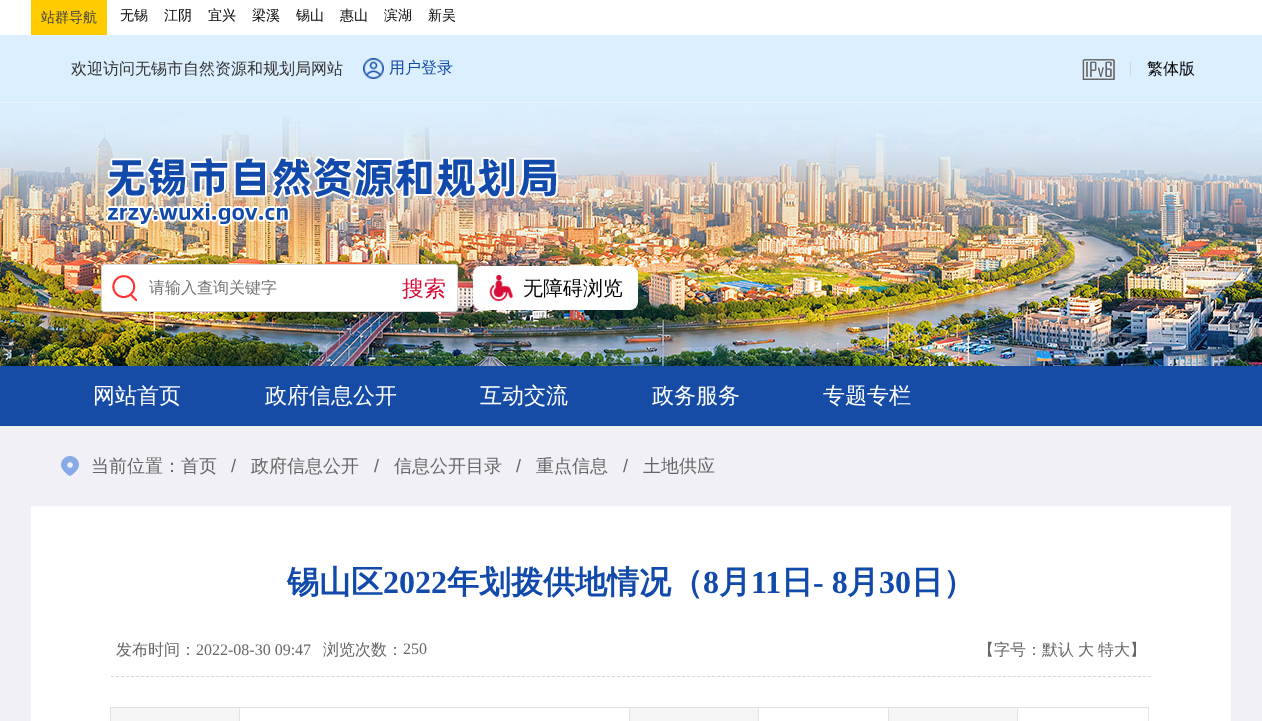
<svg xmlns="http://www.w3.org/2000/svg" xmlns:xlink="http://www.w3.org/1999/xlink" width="1262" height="721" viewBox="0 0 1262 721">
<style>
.cls-1{font:500 14px WenQuanYi Zen Hei;fill:#444444}
.cls-2{font:500 14px WenQuanYi Zen Hei;fill:#000000}
.cls-3{font:500 16px WenQuanYi Zen Hei;fill:#333333}
.cls-4{font:500 16px WenQuanYi Zen Hei;fill:#114aaa}
.cls-5{font:500 16px WenQuanYi Zen Hei;fill:#000000}
.cls-6{font:500 16px WenQuanYi Zen Hei;fill:#757575}
.cls-7{font:500 22px WenQuanYi Zen Hei;fill:#d90b37}
.cls-8{font:500 20px WenQuanYi Zen Hei;fill:#000000}
.cls-9{font:500 22px WenQuanYi Zen Hei;fill:#ffffff}
.cls-10{font:500 18px WenQuanYi Zen Hei;fill:#666666}
.cls-11{font:18px Liberation Sans;fill:#666666}
.cls-12{font:bold 32px WenQuanYi Zen Hei;fill:#114aaa}
.cls-13{font:bold 32px Liberation Serif;fill:#114aaa}
.cls-14{font:500 16px WenQuanYi Zen Hei;fill:#666666}
.cls-15{font:16px Liberation Serif;fill:#666666}
</style>
<rect width="100%" height="100%" fill="#f0f0f6"/>
<rect fill="#ffffff" x="0" y="0" width="1262" height="35"/>
<rect fill="#ffcc00" x="31" y="0" width="76" height="35"/>
<rect fill="#dceffe" x="0" y="35" width="1262" height="67"/>
<rect fill="#eaf4fe" x="0" y="102" width="1262" height="1"/>
<image xlink:href="image0.png" x="363" y="58" width="21" height="21"/>
<rect fill="#d6d3d3" x="1130" y="62" width="1" height="14"/>
<image xlink:href="image1.png" x="1082" y="59" width="33" height="21"/>
<image xlink:href="image2.png" x="0" y="103" width="1262" height="263"/>
<image xlink:href="image3.png" x="105" y="156" width="454" height="70"/>
<rect fill="#ffffff" x="101" y="264" width="357" height="48" rx="4"/>
<image xlink:href="image4.png" x="112" y="275" width="26" height="26"/>
<rect fill="none" stroke="#d7d7d7" x="101.5" y="264.5" width="356" height="47" rx="3.5"/>
<rect fill="#ffffff" x="473" y="266" width="165" height="44" rx="8"/>
<image xlink:href="image5.png" x="489" y="275" width="25" height="26"/>
<rect fill="#164ca5" x="0" y="366" width="1262" height="60"/>
<image xlink:href="image6.png" x="61" y="456" width="18" height="20"/>
<rect fill="#ffffff" x="31" y="506" width="1200" height="215"/>
<path fill="none" stroke="#d6d6d6" stroke-dasharray="3 2.01" d="M111 676.5H1151"/>
<rect fill="#f5f5f5" stroke="#e3e3e3" x="110.5" y="707.5" width="129" height="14"/>
<rect fill="none" stroke="#e3e3e3" x="239.5" y="707.5" width="390" height="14"/>
<rect fill="#f5f5f5" stroke="#e3e3e3" x="629.5" y="707.5" width="129" height="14"/>
<rect fill="none" stroke="#e3e3e3" x="758.5" y="707.5" width="130" height="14"/>
<rect fill="#f5f5f5" stroke="#e3e3e3" x="888.5" y="707.5" width="129" height="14"/>
<rect fill="none" stroke="#e3e3e3" x="1017.5" y="707.5" width="131" height="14"/>
<text class="cls-1" x="41" y="22">站群导航</text>
<text class="cls-2" x="120" y="20">无锡</text>
<text class="cls-2" x="164" y="20">江阴</text>
<text class="cls-2" x="208" y="20">宜兴</text>
<text class="cls-2" x="252" y="20">梁溪</text>
<text class="cls-2" x="296" y="20">锡山</text>
<text class="cls-2" x="340" y="20">惠山</text>
<text class="cls-2" x="384" y="20">滨湖</text>
<text class="cls-2" x="428" y="20">新吴</text>
<text class="cls-3" x="71" y="74">欢迎访问无锡市自然资源和规划局网站</text>
<text class="cls-4" x="389" y="73">用户登录</text>
<text class="cls-5" x="1147" y="74">繁体版</text>
<text class="cls-6" x="149" y="293">请输入查询关键字</text>
<text class="cls-7" x="402" y="296">搜索</text>
<text class="cls-8" x="523" y="295">无障碍浏览</text>
<text class="cls-9" x="93" y="403">网站首页</text>
<text class="cls-9" x="265" y="403">政府信息公开</text>
<text class="cls-9" x="480" y="403">互动交流</text>
<text class="cls-9" x="652" y="403">政务服务</text>
<text class="cls-9" x="823" y="403">专题专栏</text>
<text class="cls-10" x="91" y="472">当前位置：首页</text>
<text class="cls-11" x="231" y="472">/</text>
<text class="cls-10" x="251" y="472">政府信息公开</text>
<text class="cls-11" x="374" y="472">/</text>
<text class="cls-10" x="394" y="472">信息公开目录</text>
<text class="cls-11" x="516" y="472">/</text>
<text class="cls-10" x="536" y="472">重点信息</text>
<text class="cls-11" x="623" y="472">/</text>
<text class="cls-10" x="643" y="472">土地供应</text>
<text class="cls-12" x="287" y="593">锡山区</text>
<text class="cls-13" x="383" y="593">2022</text>
<text class="cls-12" x="447" y="593">年划拨供地情况（</text>
<text class="cls-13" x="703" y="593">8</text>
<text class="cls-12" x="719" y="593">月</text>
<text class="cls-13" x="751" y="593">11</text>
<text class="cls-12" x="781" y="593">日</text>
<text class="cls-13" x="813" y="593">- 8</text>
<text class="cls-12" x="847" y="593">月</text>
<text class="cls-13" x="879" y="593">30</text>
<text class="cls-12" x="911" y="593">日）</text>
<text class="cls-14" x="116" y="655">发布时间：</text>
<text class="cls-15" x="196" y="655">2022-08-30 09:47</text>
<text class="cls-14" x="323" y="655">浏览次数：</text>
<text class="cls-15" x="403" y="654">250</text>
<text class="cls-14" x="978" y="655">【字号：默认</text>
<text class="cls-14" x="1078" y="655">大</text>
<text class="cls-14" x="1098" y="655">特大】</text>
</svg>
